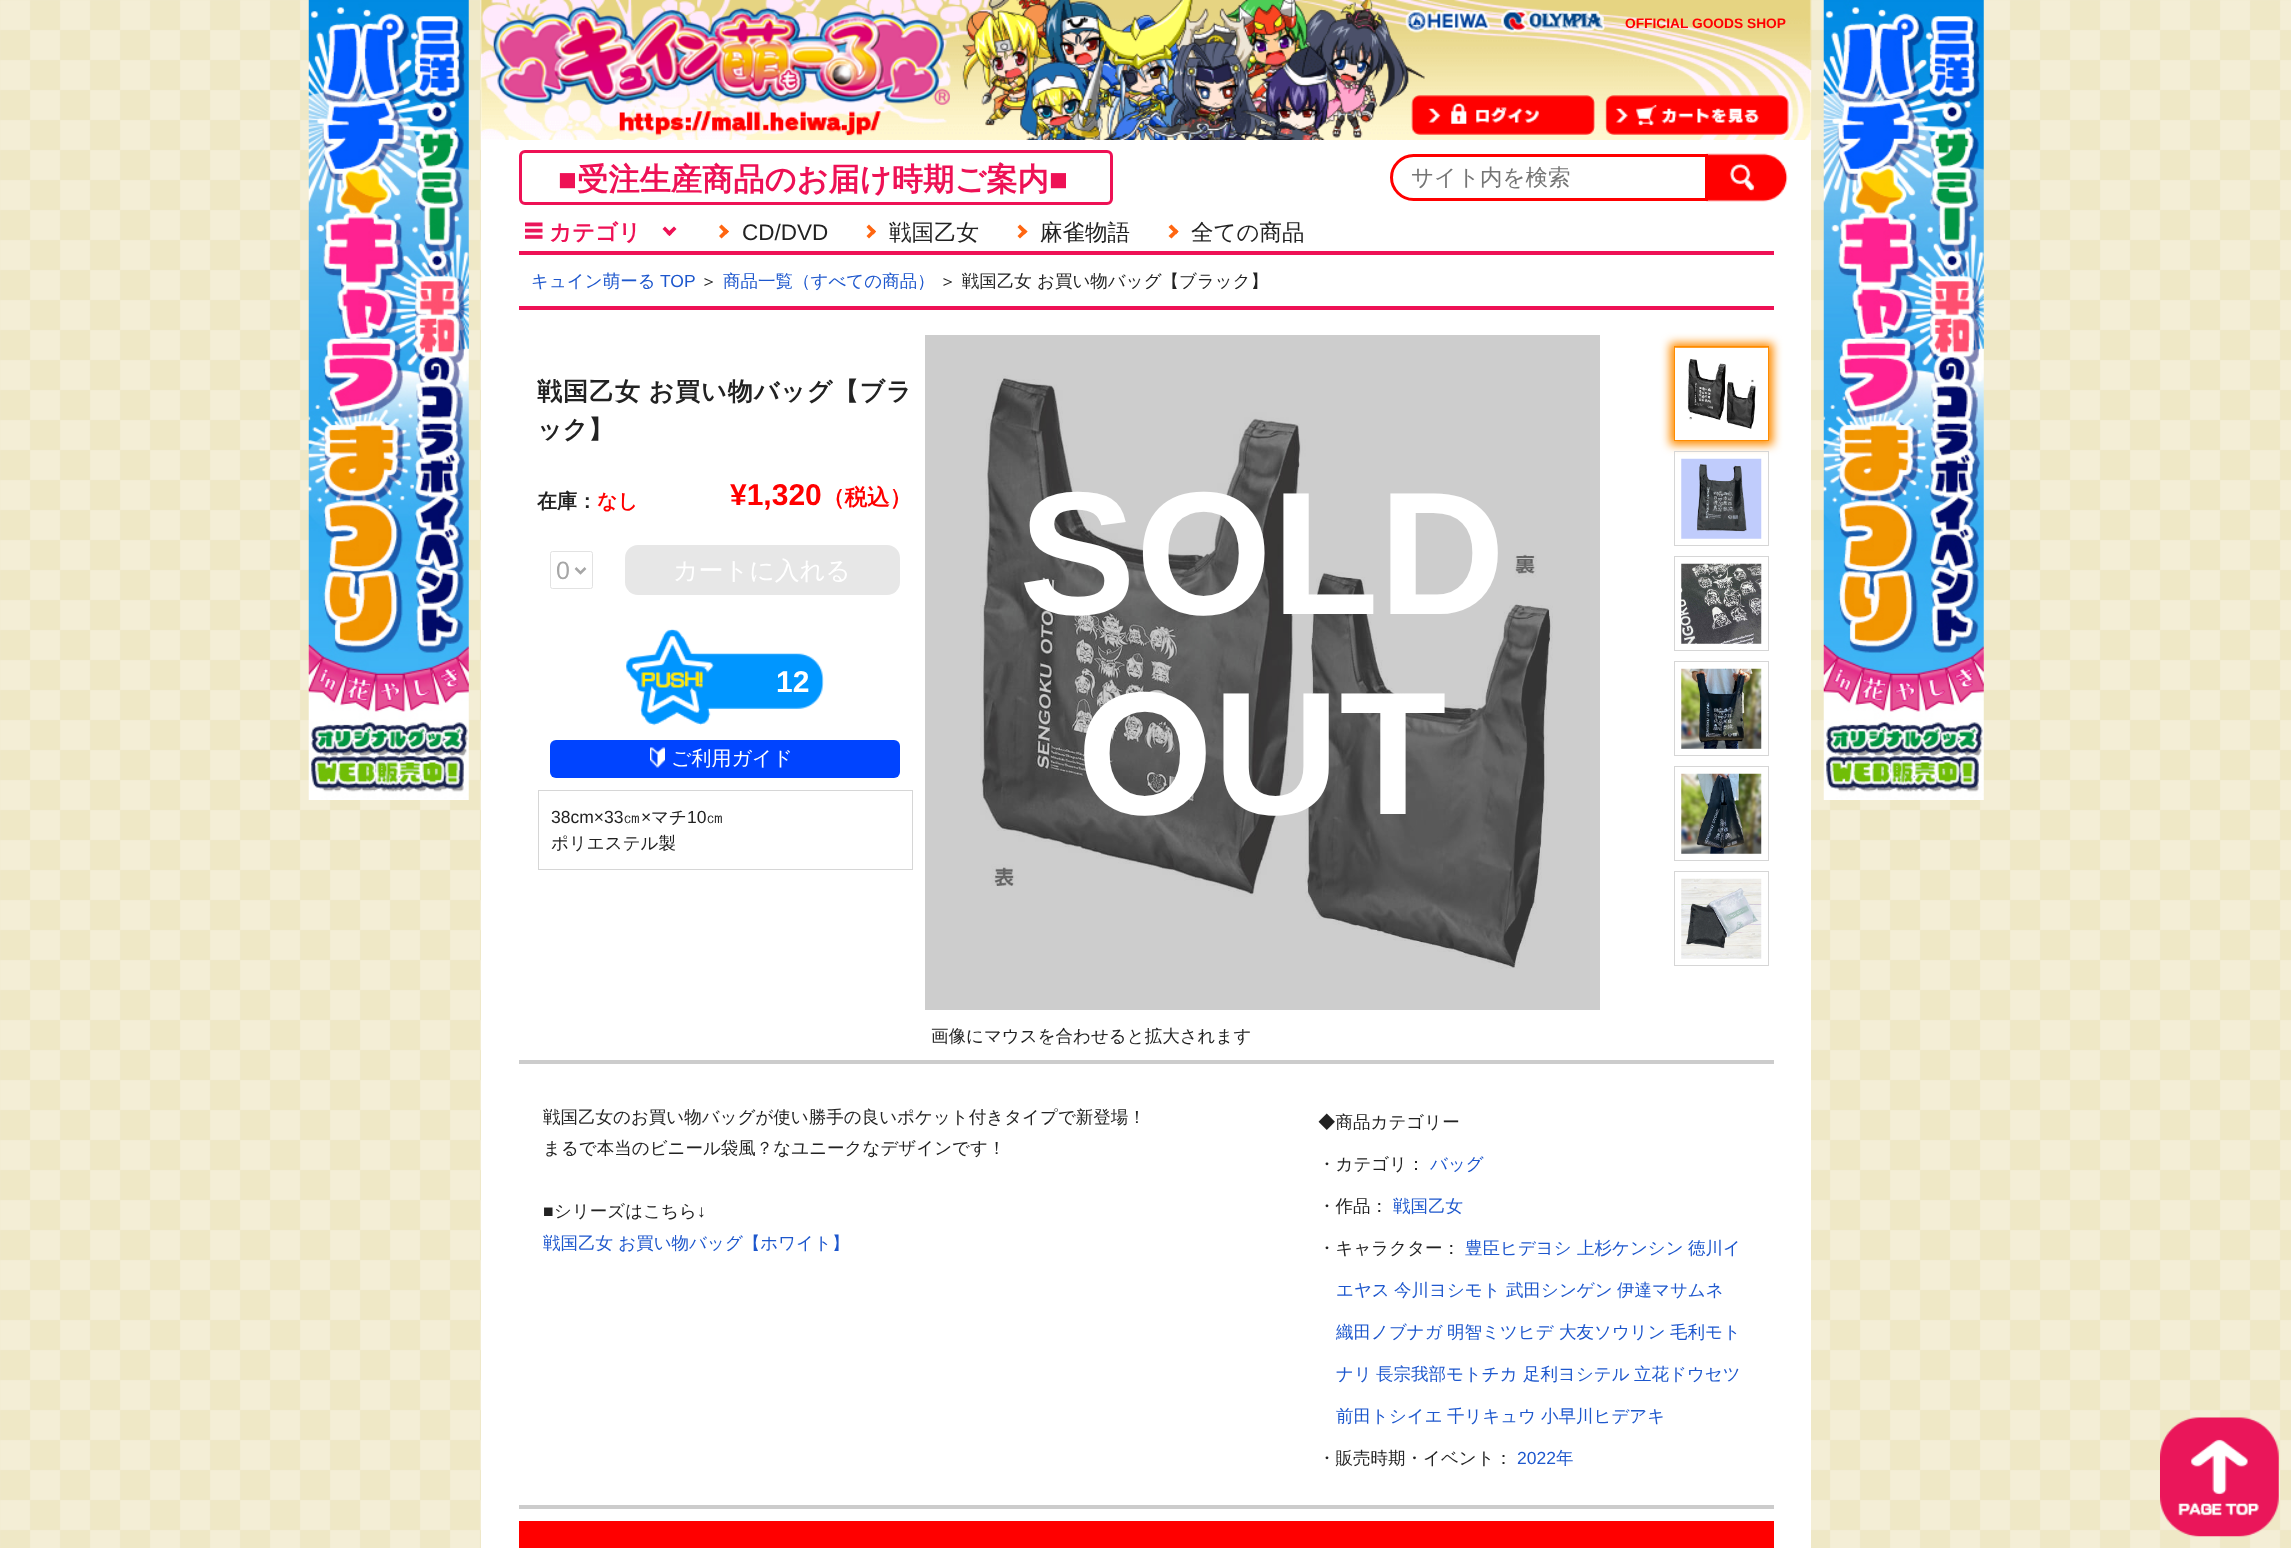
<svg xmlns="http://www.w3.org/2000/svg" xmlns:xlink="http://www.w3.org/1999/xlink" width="2291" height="1548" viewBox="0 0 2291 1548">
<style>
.cls-1{font:bold 13.75px Liberation Sans;fill:#ff0000}
.cls-2{font:bold 31.25px Liberation Sans;fill:#ee1155}
.cls-3{font:bold 31.25px WenQuanYi Zen Hei;fill:#ee1155}
.cls-4{font:500 22.5px WenQuanYi Zen Hei;fill:#757575}
.cls-5{font:bold 22.5px WenQuanYi Zen Hei;fill:#ee1155}
.cls-6{font:22.5px Liberation Sans;fill:#222222}
.cls-7{font:500 22.5px WenQuanYi Zen Hei;fill:#222222}
.cls-8{font:500 17.5px WenQuanYi Zen Hei;fill:#1d57cd}
.cls-9{font:17.5px Liberation Sans;fill:#1d57cd}
.cls-10{font:500 17.5px WenQuanYi Zen Hei;fill:#222222}
.cls-11{font:bold 25px WenQuanYi Zen Hei;letter-spacing:1px;fill:#222222}
.cls-12{font:bold 25px WenQuanYi Zen Hei;fill:#222222}
.cls-13{font:bold 20px WenQuanYi Zen Hei;fill:#222222}
.cls-14{font:bold 20px WenQuanYi Zen Hei;fill:#ff0000}
.cls-15{font:bold 30px Liberation Sans;fill:#ff0000}
.cls-16{font:bold 22.5px WenQuanYi Zen Hei;fill:#ff0000}
.cls-17{font:25px Liberation Sans;fill:#a6a6a6}
.cls-18{font:500 25px WenQuanYi Zen Hei;fill:#ffffff}
.cls-19{font:bold 30px Liberation Sans;fill:#ffffff}
.cls-20{font:500 20px WenQuanYi Zen Hei;fill:#ffffff}
.cls-21{font:17.5px Liberation Sans;fill:#222222}
.cls-22{font:bold 175px Liberation Sans;fill:#ffffff}
</style>
<defs>
<clipPath id="clip1"><path d="M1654 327H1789V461H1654ZM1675 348H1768V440H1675Z" clip-rule="evenodd"/></clipPath>
</defs>
<rect width="100%" height="100%" fill="#ffffff"/>
<image xlink:href="image0.png" x="0" y="0" width="2291" height="1548"/>
<image xlink:href="image1.png" x="308" y="0" width="161" height="800"/>
<rect fill="#ffffff" x="481" y="0" width="1330" height="1548"/>
<image xlink:href="image2.png" x="481" y="0" width="1331" height="140"/>
<image xlink:href="image3.png" x="493" y="6" width="457" height="99"/>
<image xlink:href="image4.png" x="1405" y="10" width="86" height="23"/>
<image xlink:href="image5.png" x="1501" y="10" width="104" height="23"/>
<image xlink:href="image6.png" x="1411" y="95" width="184" height="40"/>
<image xlink:href="image7.png" x="1605" y="95" width="184" height="40"/>
<rect fill="none" stroke="#ee1155" stroke-width="3" x="520.5" y="151.5" width="591" height="52" rx="4.5"/>
<path fill="none" stroke="#ff0000" stroke-width="3" d="M1413.5 155.5H1706.5V199.5H1413.5C1401.5 199.5 1391.5 189.5 1391.5 177.5C1391.5 165.5 1401.5 155.5 1413.5 155.5Z"/>
<image xlink:href="image8.png" x="1706" y="153" width="82" height="49"/>
<rect fill="#ee1155" x="519" y="251" width="1255" height="4"/>
<image xlink:href="image9.png" x="525" y="222" width="18" height="17"/>
<path fill="#ee1155" d="M674 226.5L676.5 229L669.5 236L666.5 233.5Z"/>
<path fill="#ee1155" d="M665 226.5L672 233.5L669.5 236L662.5 229Z"/>
<path fill="#ff6611" d="M721.5 224.5L729 231.5L726 234.5L719 227Z"/>
<path fill="#ff6611" d="M726 229L729 231.5L721.5 238.5L719 236Z"/>
<path fill="#ff6611" d="M869 224.5L876 231.5L873.5 234.5L866.5 227Z"/>
<path fill="#ff6611" d="M873.5 229L876 231.5L869 238.5L866.5 236Z"/>
<path fill="#ff6611" d="M1020 224.5L1027.5 231.5L1024.5 234.5L1017.5 227Z"/>
<path fill="#ff6611" d="M1024.5 229L1027.5 231.5L1020 238.5L1017.5 236Z"/>
<path fill="#ff6611" d="M1171.5 224.5L1178.5 231.5L1176 234.5L1168.5 227Z"/>
<path fill="#ff6611" d="M1176 229L1178.5 231.5L1171.5 238.5L1168.5 236Z"/>
<rect fill="#ee1155" x="519" y="306" width="1255" height="4"/>
<rect fill="#cccccc" x="519" y="1060" width="1255" height="4"/>
<rect fill="none" stroke="#e2e2e2" x="550.5" y="551.5" width="42" height="37" rx="2"/>
<path fill="none" stroke="#a6a6a6" stroke-width="2.5" d="M575.5 568L580.5 573L585.5 568"/>
<rect fill="#e7e7e7" x="625" y="545" width="275" height="50" rx="13"/>
<image xlink:href="image10.png" x="625" y="629" width="199" height="97"/>
<rect fill="#0044ff" x="550" y="740" width="350" height="38" rx="6"/>
<image xlink:href="image11.png" x="650" y="747" width="15" height="21"/>
<rect fill="none" stroke="#d6d6d6" x="538.5" y="790.5" width="374" height="79"/>
<image xlink:href="image12.png" x="980" y="375" width="573" height="594"/>
<rect fill="#828282" fill-opacity="0.4" x="925" y="335" width="675" height="675"/>
<g clip-path="url(#clip1)">
<rect fill="#ff8c00" filter="blur(5px)" x="1670" y="343" width="103" height="102"/>
</g>
<image xlink:href="image13.png" x="1687" y="358" width="69" height="71"/>
<rect fill="none" stroke="#ff8c00" x="1674.5" y="346.5" width="94" height="94"/>
<image xlink:href="image14.png" x="1681" y="458" width="81" height="81"/>
<rect fill="none" stroke="#d6d6d6" x="1674.5" y="451.5" width="94" height="94"/>
<image xlink:href="image15.png" x="1681" y="563" width="81" height="81"/>
<rect fill="none" stroke="#d6d6d6" x="1674.5" y="556.5" width="94" height="94"/>
<image xlink:href="image16.png" x="1681" y="668" width="81" height="81"/>
<rect fill="none" stroke="#d6d6d6" x="1674.5" y="661.5" width="94" height="94"/>
<image xlink:href="image17.png" x="1681" y="773" width="81" height="81"/>
<rect fill="none" stroke="#d6d6d6" x="1674.5" y="766.5" width="94" height="94"/>
<image xlink:href="image18.png" x="1681" y="878" width="81" height="81"/>
<rect fill="none" stroke="#d6d6d6" x="1674.5" y="871.5" width="94" height="94"/>
<rect fill="#cccccc" x="519" y="1505" width="1255" height="4"/>
<rect fill="#ff0000" x="519" y="1521" width="1255" height="27"/>
<image xlink:href="image19.png" x="1823" y="0" width="161" height="800"/>
<image xlink:href="image20.png" x="2160" y="1417" width="119" height="120"/>
<text class="cls-1" x="1625" y="28">OFFICIAL GOODS SHOP</text>
<text class="cls-2" x="558" y="190">■</text>
<text class="cls-3" x="577" y="190">受注生産商品のお届け時期ご案内</text>
<text class="cls-2" x="1049" y="190">■</text>
<text class="cls-4" x="1411" y="185">サイト内を検索</text>
<text class="cls-5" x="549" y="240">カテゴリ</text>
<text class="cls-6" x="742" y="240">CD/DVD</text>
<text class="cls-7" x="889" y="240">戦国乙女</text>
<text class="cls-7" x="1040" y="240">麻雀物語</text>
<text class="cls-7" x="1191" y="240">全ての商品</text>
<text class="cls-8" x="531" y="287">キュイン萌ーる</text>
<text class="cls-9" x="660" y="287">TOP</text>
<text class="cls-10" x="700" y="287">＞</text>
<text class="cls-8" x="723" y="287">商品一覧（すべての商品）</text>
<text class="cls-10" x="939" y="287">＞ 戦国乙女 お買い物バッグ【ブラック】</text>
<text class="cls-11" x="537" y="400" word-spacing="-1">戦国乙女 お買い物バッグ【ブラ</text>
<text class="cls-12" x="537" y="438">ック】</text>
<text class="cls-13" x="537" y="508">在庫：</text>
<text class="cls-14" x="597" y="508">なし</text>
<text class="cls-15" x="730" y="505">¥1,320</text>
<text class="cls-16" x="822" y="505">（税込）</text>
<text class="cls-17" x="556" y="579">0</text>
<text class="cls-18" x="673" y="579">カートに入れる</text>
<text class="cls-19" x="776" y="692">12</text>
<text class="cls-20" x="671" y="765">ご利用ガイド</text>
<text class="cls-21" x="551" y="823">38cm×33</text>
<text class="cls-10" x="623" y="823">㎝</text>
<text class="cls-21" x="641" y="823">×</text>
<text class="cls-10" x="651" y="823">マチ</text>
<text class="cls-21" x="687" y="823">10</text>
<text class="cls-10" x="706" y="823">㎝</text>
<text class="cls-10" x="551" y="849">ポリエステル製</text>
<text class="cls-22" x="1019" y="614">SOLD</text>
<text class="cls-22" x="1077" y="814">OUT</text>
<text class="cls-10" x="931" y="1042">画像にマウスを合わせると拡大されます</text>
<text class="cls-10"><tspan x="543" y="1123">戦国乙女のお買い物バッグが使い勝手の良いポケット付きタイプで新登場！</tspan><tspan x="543" y="1154">まるで本当のビニール袋風？なユニークなデザインです！</tspan></text>
<text class="cls-21" x="543" y="1217">■</text>
<text class="cls-10" x="554" y="1217">シリーズはこちら</text>
<text class="cls-21" x="697" y="1217">↓</text>
<text class="cls-8" x="543" y="1249">戦国乙女 お買い物バッグ【ホワイト】</text>
<text class="cls-10" x="1318" y="1128">◆商品カテゴリー</text>
<text class="cls-10" x="1318" y="1170">・カテゴリ：</text>
<text class="cls-8" x="1430" y="1170">バッグ</text>
<text class="cls-10" x="1318" y="1212">・作品：</text>
<text class="cls-8" x="1393" y="1212">戦国乙女</text>
<text class="cls-10" x="1318" y="1254">・キャラクター：</text>
<text class="cls-8" x="1465" y="1254">豊臣ヒデヨシ</text>
<text class="cls-8" x="1577" y="1254">上杉ケンシン</text>
<text class="cls-8" x="1688" y="1254">徳川イ</text>
<text class="cls-8" x="1336" y="1296">エヤス</text>
<text class="cls-8" x="1394" y="1296">今川ヨシモト</text>
<text class="cls-8" x="1506" y="1296">武田シンゲン</text>
<text class="cls-8" x="1617" y="1296">伊達マサムネ</text>
<text class="cls-8" x="1336" y="1338">織田ノブナガ</text>
<text class="cls-8" x="1447" y="1338">明智ミツヒデ</text>
<text class="cls-8" x="1559" y="1338">大友ソウリン</text>
<text class="cls-8" x="1670" y="1338">毛利モト</text>
<text class="cls-8" x="1336" y="1380">ナリ</text>
<text class="cls-8" x="1376" y="1380">長宗我部モトチカ</text>
<text class="cls-8" x="1523" y="1380">足利ヨシテル</text>
<text class="cls-8" x="1634" y="1380">立花ドウセツ</text>
<text class="cls-8" x="1336" y="1422">前田トシイエ</text>
<text class="cls-8" x="1447" y="1422">千リキュウ</text>
<text class="cls-8" x="1541" y="1422">小早川ヒデアキ</text>
<text class="cls-10" x="1318" y="1464">・販売時期・イベント：</text>
<text class="cls-9" x="1517" y="1464">2022</text>
<text class="cls-8" x="1556" y="1464">年</text>
</svg>
